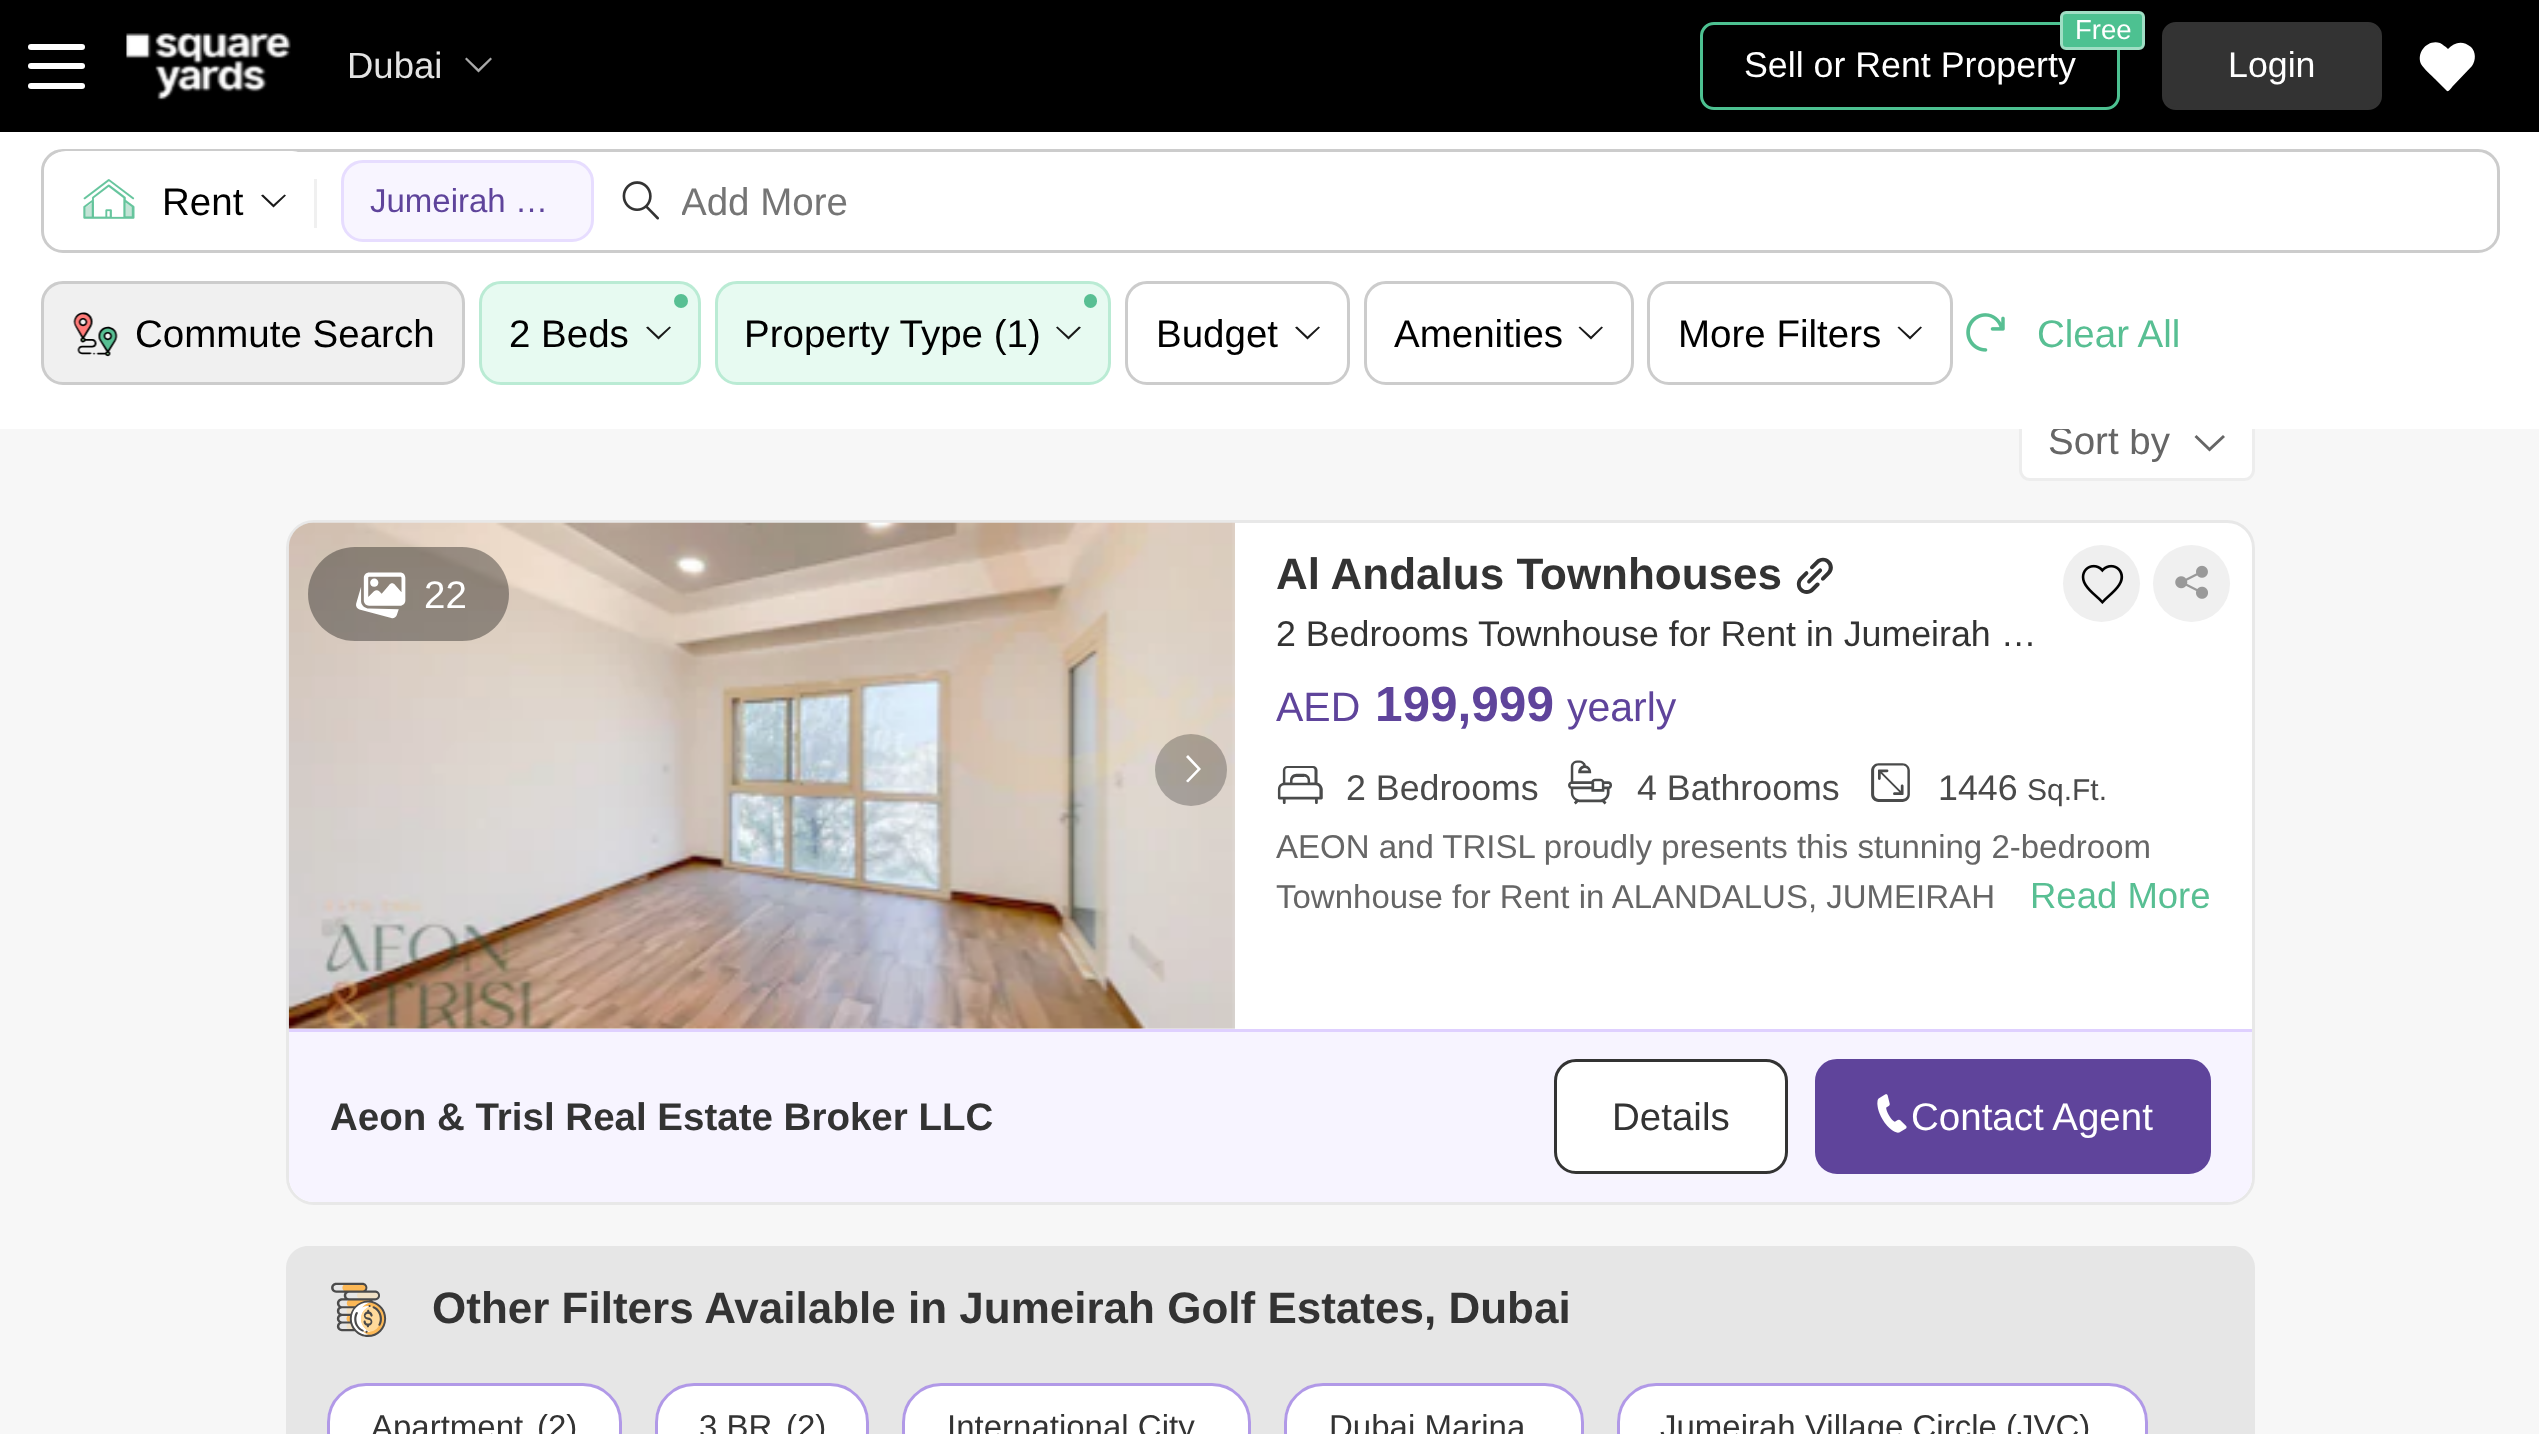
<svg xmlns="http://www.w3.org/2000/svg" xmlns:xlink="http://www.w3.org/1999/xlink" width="2539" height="1434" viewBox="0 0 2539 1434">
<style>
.cls-1{font:36.5px Liberation Sans;fill:#e3e3e3}
.cls-2{font:27.5px Liberation Sans;fill:#ffffff}
.cls-3{font:35.75px Liberation Sans;fill:#ffffff}
.cls-4{font:38.5px Liberation Sans;fill:#666666}
.cls-5{font:38.5px Liberation Sans;fill:#000000}
.cls-6{font:38.5px Liberation Sans;fill:#757575}
.cls-7{font:33px Liberation Sans;fill:#5f449b}
.cls-8{font:38.5px Liberation Sans;fill:#58bf93}
.cls-9{font:38.5px Liberation Sans;fill:#ffffff}
.cls-10{font:bold 44px Liberation Sans;fill:#333333}
.cls-11{font:35.75px Liberation Sans;fill:#333333}
.cls-12{font:41px Liberation Sans;fill:#5f449b}
.cls-13{font:bold 49.5px Liberation Sans;fill:#5f449b}
.cls-14{font:35.75px Liberation Sans;fill:#4a4a4a}
.cls-15{font:30px Liberation Sans;fill:#4a4a4a}
.cls-16{font:33px Liberation Sans;fill:#666666}
.cls-17{font:36.5px Liberation Sans;fill:#58bf93}
.cls-18{font:bold 38.5px Liberation Sans;fill:#333333}
.cls-19{font:38.5px Liberation Sans;fill:#333333}
.cls-20{font:33px Liberation Sans;fill:#333333}
</style>
<defs>
<clipPath id="clip1"><rect x="682" y="179" width="1788" height="44"/></clipPath>
</defs>
<rect width="100%" height="100%" fill="#f7f7f7"/>
<rect fill="#000000" x="0" y="0" width="2539" height="132"/>
<rect fill="#ffffff" x="28" y="63" width="57" height="6" rx="3"/>
<rect fill="#ffffff" x="28" y="44" width="57" height="6" rx="3"/>
<rect fill="#ffffff" x="28" y="83" width="57" height="6" rx="3"/>
<image xlink:href="image0.png" x="126" y="33" width="165" height="68"/>
<path fill="#a9a9a9" d="M478.5 69L466.5 57.5L465 59L478.5 72.5L492 59L490.5 57.5Z"/>
<rect fill="none" stroke="#4dc191" stroke-width="3" x="1701.5" y="23.5" width="417" height="85" rx="12.5"/>
<rect fill="#4dc191" stroke="#a0dec4" stroke-width="3" x="2061.5" y="12.5" width="82" height="36" rx="4.5"/>
<rect fill="#333333" stroke="#333333" stroke-width="3" x="2163.5" y="23.5" width="217" height="85" rx="12.5"/>
<path fill="#ffffff" d="M2471 47C2463 40 2454 42 2448 49C2445 46 2443 45 2440 43C2428 39 2416 52 2421 64C2424 69 2432 76 2435 79L2447 91C2449 92 2452 87 2452 87L2472 66C2476 60 2476 52 2471 47Z"/>
<rect fill="#ffffff" stroke="#ededed" stroke-width="3" x="2020.5" y="400.5" width="233" height="79" rx="9.5"/>
<path fill="#666666" d="M2209.5 447.5L2196.5 435L2194.5 437L2209.5 451.5L2225 437L2223 435Z"/>
<rect fill="#ffffff" stroke="#e8e8e8" stroke-width="3" x="287.5" y="521.5" width="1966" height="682" rx="26.5"/>
<path fill="#f1f1f1" d="M314 523H1235V1029H289V548C289 534 300 523 314 523Z"/>
<image xlink:href="image5.png" x="288" y="522" width="947" height="507"/>
<circle fill="#000000" fill-opacity="0.25" cx="1191" cy="770" r="36"/>
<path fill="#ffffff" d="M1197.5 769L1186 781L1188 782.5L1201 769L1188 755L1186 757Z"/>
<rect fill="#000000" fill-opacity="0.35" x="308" y="547" width="201" height="94" rx="47"/>
<image xlink:href="image6.png" x="356" y="572" width="50" height="47"/>
<image xlink:href="image7.png" x="1796" y="557" width="37" height="37"/>
<circle fill="#efefef" cx="2101.5" cy="583.5" r="38.5"/>
<image xlink:href="image8.png" x="2081" y="564" width="43" height="40"/>
<circle fill="#f0f0f0" cx="2191.5" cy="583.5" r="38.5"/>
<image xlink:href="image9.png" x="2175" y="565" width="33" height="34"/>
<image xlink:href="image10.png" x="1277" y="766" width="46" height="38"/>
<image xlink:href="image11.png" x="1568" y="760" width="44" height="45"/>
<image xlink:href="image12.png" x="1871" y="763" width="39" height="39"/>
<path fill="#f7f4ff" d="M289 1029H2252V1177C2252 1191 2241 1202 2227 1202H314C300 1202 289 1191 289 1177Z"/>
<rect fill="#dfd0ff" x="289" y="1029" width="1963" height="3"/>
<rect fill="#ffffff" stroke="#333333" stroke-width="3" x="1555.5" y="1060.5" width="231" height="112" rx="20.5"/>
<rect fill="#5f449b" stroke="#5f449b" stroke-width="3" x="1816.5" y="1060.5" width="393" height="112" rx="20.5"/>
<image xlink:href="image13.png" x="1877" y="1094" width="30" height="39"/>
<path fill="#e6e6e6" d="M308 1246H2233C2245 1246 2255 1256 2255 1268V1372H286V1268C286 1256 296 1246 308 1246Z"/>
<image xlink:href="image14.png" x="331" y="1282" width="56" height="55"/>
<rect fill="#e6e6e6" x="286" y="1372" width="1969" height="62"/>
<rect fill="#ffffff" x="327" y="1383" width="295" height="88" rx="39"/>
<rect fill="none" stroke="#6b3ed1" stroke-opacity="0.53" stroke-width="3" x="328.5" y="1384.5" width="292" height="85" rx="37.5"/>
<rect fill="#ffffff" x="655" y="1383" width="214" height="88" rx="39"/>
<rect fill="none" stroke="#6b3ed1" stroke-opacity="0.53" stroke-width="3" x="656.5" y="1384.5" width="211" height="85" rx="37.5"/>
<rect fill="#ffffff" x="902" y="1383" width="349" height="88" rx="39"/>
<rect fill="none" stroke="#6b3ed1" stroke-opacity="0.53" stroke-width="3" x="903.5" y="1384.5" width="346" height="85" rx="37.5"/>
<rect fill="#ffffff" x="1284" y="1383" width="300" height="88" rx="39"/>
<rect fill="none" stroke="#6b3ed1" stroke-opacity="0.53" stroke-width="3" x="1285.5" y="1384.5" width="297" height="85" rx="37.5"/>
<rect fill="#ffffff" x="1617" y="1383" width="531" height="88" rx="39"/>
<rect fill="none" stroke="#6b3ed1" stroke-opacity="0.53" stroke-width="3" x="1618.5" y="1384.5" width="528" height="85" rx="37.5"/>
<text class="cls-1" x="347" y="78">Dubai</text>
<text class="cls-2" x="2075" y="39">Free</text>
<text class="cls-3" x="1744" y="77">Sell or Rent Property</text>
<text class="cls-3" x="2228" y="77">Login</text>
<text class="cls-4" x="2048" y="454">Sort by</text>
<rect fill="#ffffff" x="0" y="132" width="2539" height="297"/>
<rect fill="none" stroke="#cccccc" stroke-width="3" x="1648.5" y="282.5" width="303" height="101" rx="20.5"/>
<path fill="#1a1a1a" d="M1910 336.5L1899 326.5L1897.5 327.5L1910 339.5L1922 327.5L1920.5 326.5Z"/>
<text class="cls-5" x="1678" y="347">More Filters</text>
<rect fill="none" stroke="#cccccc" stroke-width="3" x="1365.5" y="282.5" width="267" height="101" rx="20.5"/>
<path fill="#1a1a1a" d="M1591 336.5L1580 326.5L1578.5 327.5L1591 339.5L1603 327.5L1601.5 326.5Z"/>
<text class="cls-5" x="1394" y="347">Amenities</text>
<rect fill="none" stroke="#cccccc" stroke-width="3" x="1126.5" y="282.5" width="222" height="101" rx="20.5"/>
<path fill="#1a1a1a" d="M1307.5 336.5L1297 326.5L1295 327.5L1307.5 339.5L1320 327.5L1318.5 326.5Z"/>
<text class="cls-5" x="1156" y="347">Budget</text>
<rect fill="#e7faf1" stroke="#baebd4" stroke-width="3" x="716.5" y="282.5" width="393" height="101" rx="20.5"/>
<path fill="#1a1a1a" d="M1068.5 336.5L1057.5 326.5L1056 327.5L1068.5 339.5L1081 327.5L1079 326.5Z"/>
<rect fill="#58bf93" x="1084" y="294" width="13" height="14" rx="6.5"/>
<text class="cls-5" x="744" y="347">Property Type (1)</text>
<rect fill="#e7faf1" stroke="#baebd4" stroke-width="3" x="480.5" y="282.5" width="219" height="101" rx="20.5"/>
<path fill="#1a1a1a" d="M658.5 336.5L648 326.5L646 327.5L658.5 339.5L671 327.5L669.5 326.5Z"/>
<circle fill="#58bf93" cx="681" cy="301" r="7"/>
<text class="cls-5" x="509" y="347">2 Beds</text>
<rect fill="#f0f0f0" stroke="#cccccc" stroke-width="3" x="42.5" y="282.5" width="421" height="101" rx="20.5"/>
<image xlink:href="image3.png" x="73" y="312" width="45" height="45"/>
<text class="cls-5" x="135" y="347">Commute Search</text>
<rect fill="none" stroke="#cccccc" stroke-width="3" x="42.5" y="150.5" width="2456" height="101" rx="20.5"/>
<image xlink:href="image2.png" x="622" y="181" width="37" height="39"/>
<g clip-path="url(#clip1)">
<text class="cls-6" x="681" y="215">Add More</text>
</g>
<rect fill="#f8f5ff" stroke="#e7ddff" stroke-width="3" x="342.5" y="161.5" width="250" height="79" rx="20.5"/>
<text class="cls-7" x="370" y="212">Jumeirah …</text>
<rect fill="#f0f0f0" x="314" y="179" width="3" height="49"/>
<rect fill="#ffffff" x="44" y="151" width="270" height="99" rx="22"/>
<path fill="#1a1a1a" d="M273.5 204.5L263 194.5L261 195.5L273.5 207.5L286 195.5L284.5 194.5Z"/>
<image xlink:href="image1.png" x="83" y="179" width="52" height="40"/>
<text class="cls-5" x="162" y="215">Rent</text>
<text class="cls-8" x="2037" y="347">Clear All</text>
<image xlink:href="image4.png" x="1966" y="313" width="39" height="39"/>
<text class="cls-9" x="424" y="608">22</text>
<text class="cls-10" x="1276" y="589">Al Andalus Townhouses</text>
<text class="cls-11" x="1276" y="646">2 Bedrooms Townhouse for Rent in Jumeirah …</text>
<text class="cls-12" x="1276" y="721">AED</text>
<text class="cls-13" x="1375" y="721">199,999</text>
<text class="cls-12" x="1567" y="721">yearly</text>
<text class="cls-14" x="1346" y="800">2 Bedrooms</text>
<text class="cls-14" x="1637" y="800">4 Bathrooms</text>
<text class="cls-14" x="1938" y="800">1446</text>
<text class="cls-15" x="2027" y="800">Sq.Ft.</text>
<text class="cls-16"><tspan x="1276" y="858">AEON and TRISL proudly presents this stunning 2-bedroom</tspan><tspan x="1276" y="908">Townhouse for Rent in ALANDALUS, JUMEIRAH</tspan></text>
<text class="cls-17" x="2030" y="908">Read More</text>
<text class="cls-18" x="330" y="1130">Aeon &amp; Trisl Real Estate Broker LLC</text>
<text class="cls-19" x="1612" y="1130">Details</text>
<text class="cls-9" x="1911" y="1130">Contact Agent</text>
<text class="cls-10" x="432" y="1323">Other Filters Available in Jumeirah Golf Estates, Dubai</text>
<text class="cls-20" x="371" y="1438">Apartment</text>
<text class="cls-20" x="537" y="1438">(2)</text>
<text class="cls-20" x="699" y="1438">3 BR</text>
<text class="cls-20" x="786" y="1438">(2)</text>
<text class="cls-20" x="947" y="1438">International City</text>
<text class="cls-20" x="1329" y="1438">Dubai Marina</text>
<text class="cls-20" x="1660" y="1438">Jumeirah Village Circle (JVC)</text>
</svg>
